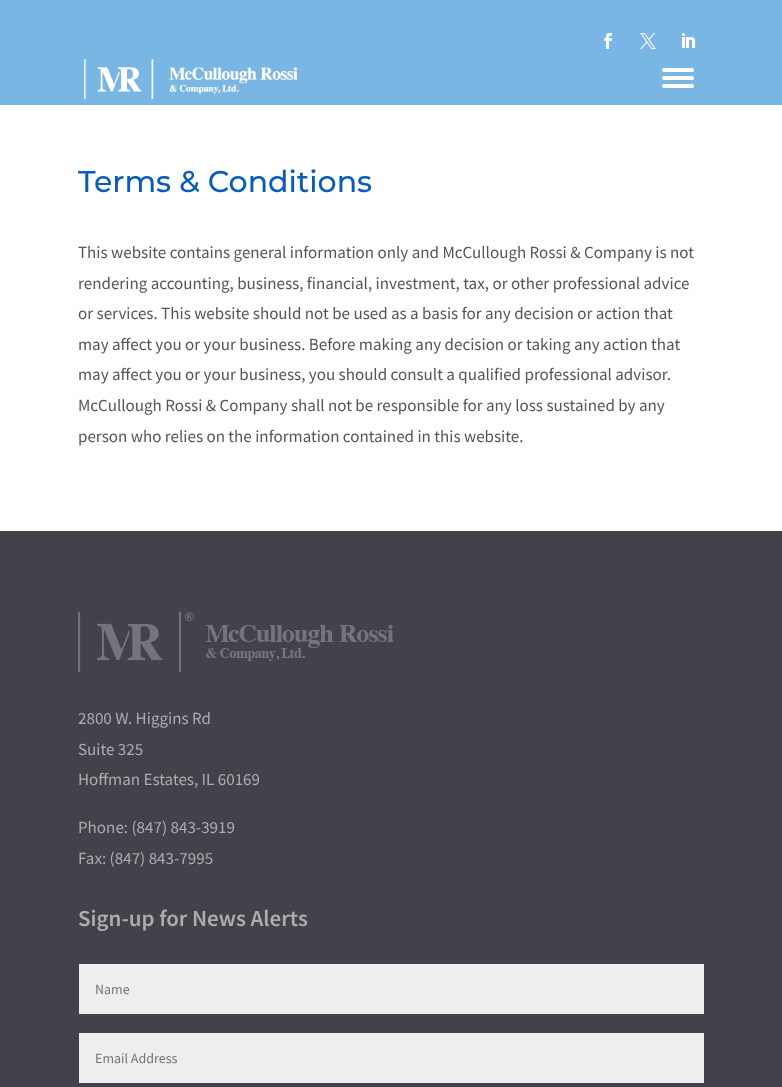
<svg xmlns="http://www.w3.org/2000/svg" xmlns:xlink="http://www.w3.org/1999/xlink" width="782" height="1087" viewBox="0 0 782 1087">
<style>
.cls-1{font:100 30px Montserrat;fill:#095cb7}
.cls-2{font:17px Source Sans Pro;fill:#555555}
.cls-3{font:17px Source Sans Pro;fill:#adadad}
.cls-4{font:600 23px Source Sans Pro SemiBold;fill:#adadad}
.cls-5{font:14px Source Sans Pro;fill:#757575}
</style>
<rect width="100%" height="100%" fill="#ffffff"/>
<rect fill="#7ab6e4" x="0" y="0" width="782" height="105"/>
<image xlink:href="image0.png" x="604" y="33" width="8" height="16"/>
<image xlink:href="image1.png" x="640" y="33" width="16" height="16"/>
<image xlink:href="image2.png" x="682" y="33" width="14" height="15"/>
<image xlink:href="image3.png" x="84" y="59" width="213" height="40"/>
<rect fill="#ffffff" x="662" y="68" width="32" height="4" rx="2"/>
<rect fill="#ffffff" x="662" y="76" width="32" height="4" rx="2"/>
<rect fill="#ffffff" x="662" y="84" width="32" height="4" rx="2"/>
<rect fill="#42424a" x="0" y="531" width="782" height="556"/>
<image xlink:href="image4.png" x="78" y="611" width="316" height="62"/>
<rect fill="#eeeeee" x="79" y="964" width="625" height="50"/>
<rect fill="#eeeeee" x="79" y="1033" width="625" height="50"/>
<text class="cls-1" x="78" y="192">Terms &amp; Conditions</text>
<text class="cls-2"><tspan x="78" y="258">This website contains general information only and McCullough Rossi &amp; Company is not</tspan><tspan x="78" y="289">rendering accounting, business, financial, investment, tax, or other professional advice</tspan><tspan x="78" y="319">or services. This website should not be used as a basis for any decision or action that</tspan><tspan x="78" y="350">may affect you or your business. Before making any decision or taking any action that</tspan><tspan x="78" y="380">may affect you or your business, you should consult a qualified professional advisor.</tspan><tspan x="78" y="411">McCullough Rossi &amp; Company shall not be responsible for any loss sustained by any</tspan><tspan x="78" y="442">person who relies on the information contained in this website.</tspan></text>
<text class="cls-3"><tspan x="78" y="724">2800 W. Higgins Rd</tspan><tspan x="78" y="755">Suite 325</tspan><tspan x="78" y="785">Hoffman Estates, IL 60169</tspan></text>
<text class="cls-3"><tspan x="78" y="833">Phone: (847) 843-3919</tspan><tspan x="78" y="864">Fax: (847) 843-7995</tspan></text>
<text class="cls-4" x="78" y="926">Sign-up for News Alerts</text>
<text class="cls-5" x="95" y="994">Name</text>
<text class="cls-5" x="95" y="1063">Email Address</text>
</svg>
